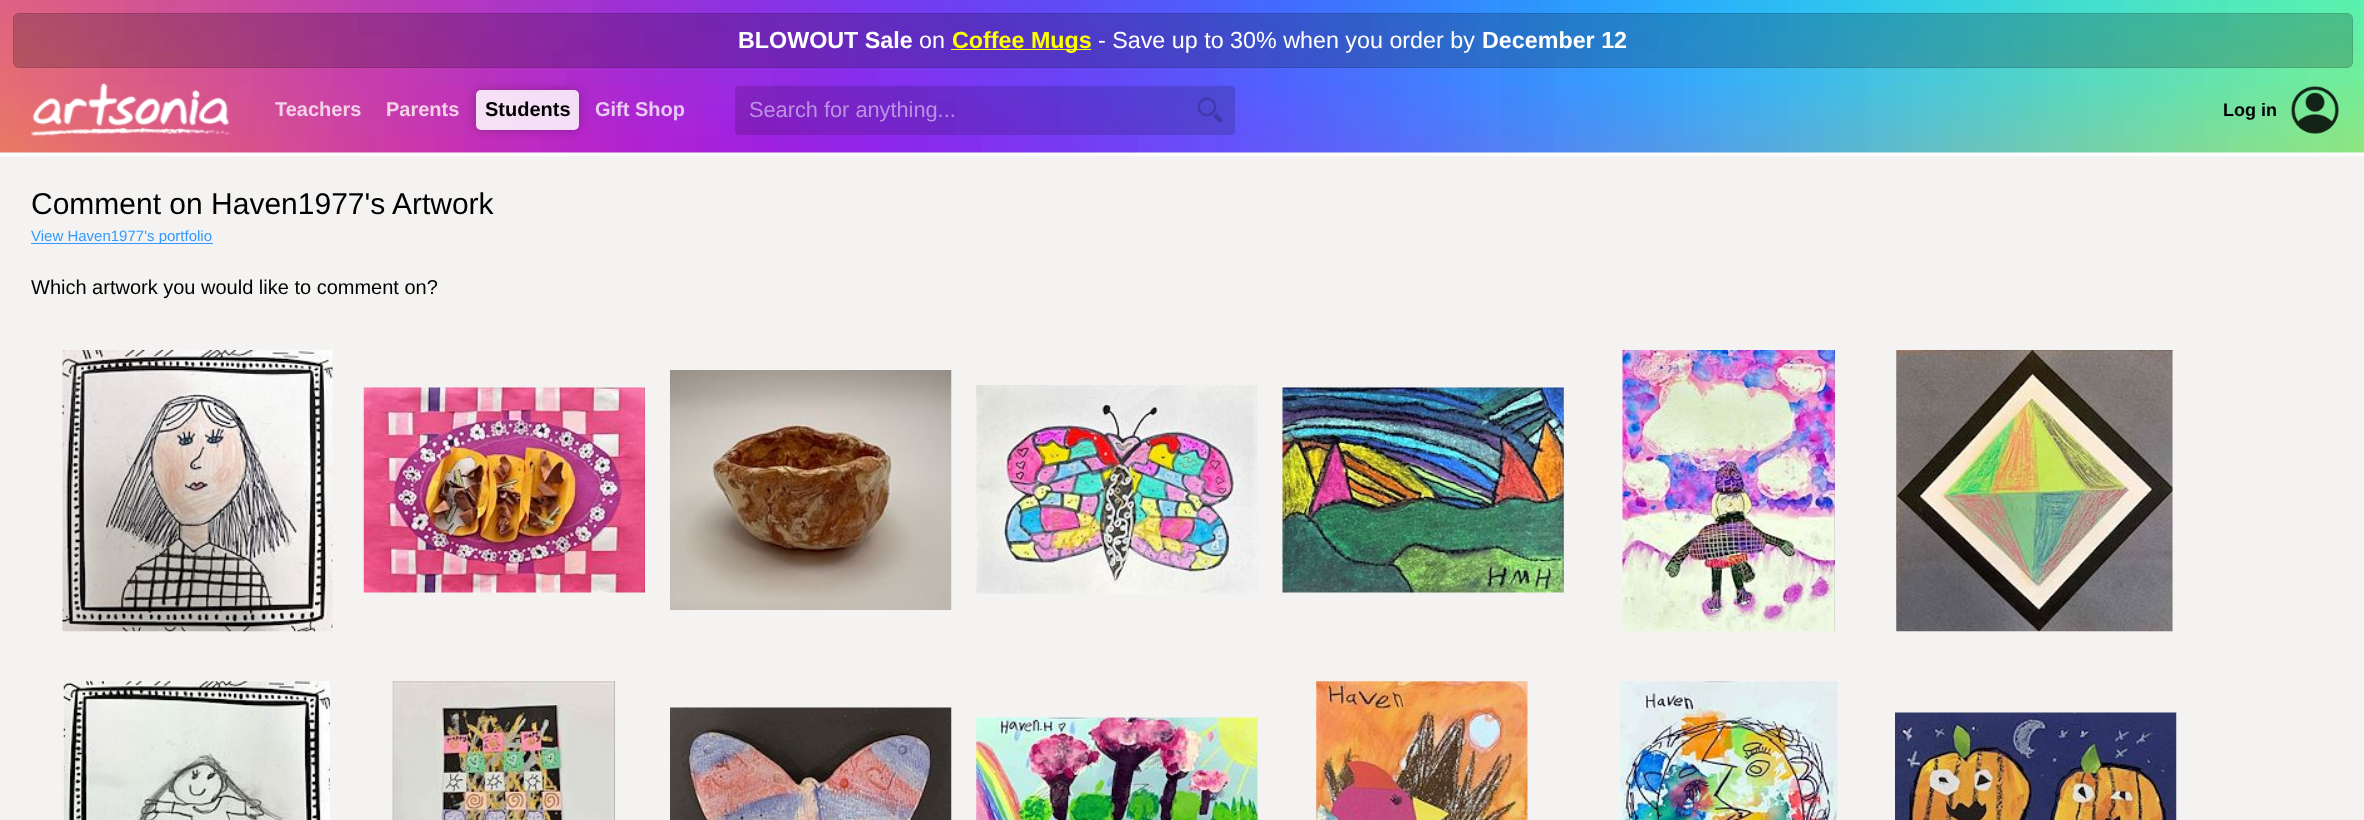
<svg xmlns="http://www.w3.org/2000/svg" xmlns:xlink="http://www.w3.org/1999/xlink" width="2364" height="820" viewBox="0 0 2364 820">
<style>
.cls-1{font:bold 23.3px Liberation Sans;fill:#ffffff}
.cls-2{font:23.3px Liberation Sans;fill:#ffffff}
.cls-3{font:bold 23.3px Liberation Sans;fill:#ffff00}
.cls-4{font:bold 20px Liberation Sans;fill:#f3d1e7}
.cls-5{font:bold 20px Liberation Sans;fill:#000000}
.cls-6{font:bold 20px Liberation Sans;fill:#eac9f4}
.cls-7{font:21.75px Liberation Sans;fill:#bc91e3}
.cls-8{font:bold 18px Liberation Sans;fill:#000000}
.cls-9{font:30px Liberation Sans;fill:#000000}
.cls-10{font:15px Liberation Sans;fill:#3399ff}
.cls-11{font:20px Liberation Sans;fill:#000000}
</style>
<defs>
<clipPath id="clip1"><path d="M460 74H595V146H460ZM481 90H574C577 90 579 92 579 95V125C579 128 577 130 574 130H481C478 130 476 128 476 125V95C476 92 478 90 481 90Z" clip-rule="evenodd"/></clipPath>
</defs>
<rect width="100%" height="100%" fill="#f4f3f1"/>
<rect fill="#ffffff" x="0" y="152" width="2364" height="4"/>
<image xlink:href="image0.png" x="0" y="0" width="2364" height="153"/>
<rect fill="#000000" fill-opacity="0.2" x="13" y="13" width="2340" height="55" rx="6"/>
<rect fill="none" stroke="#000000" stroke-opacity="0.1" x="13.5" y="13.5" width="2339" height="54" rx="5.5"/>
<rect fill="#ffff00" x="951" y="49" width="140" height="1"/>
<image xlink:href="image1.png" x="31" y="83" width="200" height="54"/>
<g clip-path="url(#clip1)">
<rect fill="#000000" fill-opacity="0.25" filter="blur(5px)" x="476" y="90" width="103" height="40" rx="5"/>
</g>
<rect fill="#ffffff" fill-opacity="0.85" x="476" y="90" width="103" height="40" rx="5"/>
<rect fill="#000000" fill-opacity="0.15" x="735" y="86" width="500" height="49" rx="4"/>
<image xlink:href="image2.png" x="1197" y="97" width="26" height="26"/>
<image xlink:href="image3.png" x="2291" y="86" width="48" height="48"/>
<rect fill="#3399ff" x="31" y="243" width="182" height="1"/>
<image xlink:href="image4.png" x="62" y="350" width="271" height="282"/>
<image xlink:href="image5.png" x="363" y="387" width="282" height="206"/>
<image xlink:href="image6.png" x="670" y="370" width="282" height="240"/>
<image xlink:href="image7.png" x="976" y="385" width="282" height="209"/>
<image xlink:href="image8.png" x="1282" y="387" width="282" height="206"/>
<image xlink:href="image9.png" x="1622" y="350" width="213" height="282"/>
<image xlink:href="image10.png" x="1896" y="350" width="277" height="282"/>
<image xlink:href="image11.png" x="63" y="681" width="267" height="139"/>
<image xlink:href="image12.png" x="392" y="681" width="223" height="139"/>
<image xlink:href="image13.png" x="670" y="707" width="282" height="113"/>
<image xlink:href="image14.png" x="976" y="717" width="282" height="103"/>
<image xlink:href="image15.png" x="1316" y="681" width="212" height="139"/>
<image xlink:href="image16.png" x="1620" y="681" width="218" height="139"/>
<image xlink:href="image17.png" x="1895" y="712" width="282" height="108"/>
<text class="cls-1" x="738" y="48">BLOWOUT Sale</text>
<text class="cls-2" x="919" y="48">on</text>
<text class="cls-3" x="952" y="48">Coffee Mugs</text>
<text class="cls-2" x="1098" y="48">- Save up to 30% when you order by</text>
<text class="cls-1" x="1482" y="48">December 12</text>
<text class="cls-4" x="275" y="116">Teachers</text>
<text class="cls-4" x="386" y="116">Parents</text>
<text class="cls-5" x="485" y="116">Students</text>
<text class="cls-6" x="595" y="116">Gift Shop</text>
<text class="cls-7" x="749" y="117">Search for anything...</text>
<text class="cls-8" x="2223" y="116">Log in</text>
<text class="cls-9" x="31" y="214">Comment on Haven1977's Artwork</text>
<text class="cls-10" x="31" y="241">View Haven1977's portfolio</text>
<text class="cls-11" x="31" y="294">Which artwork you would like to comment on?</text>
</svg>
